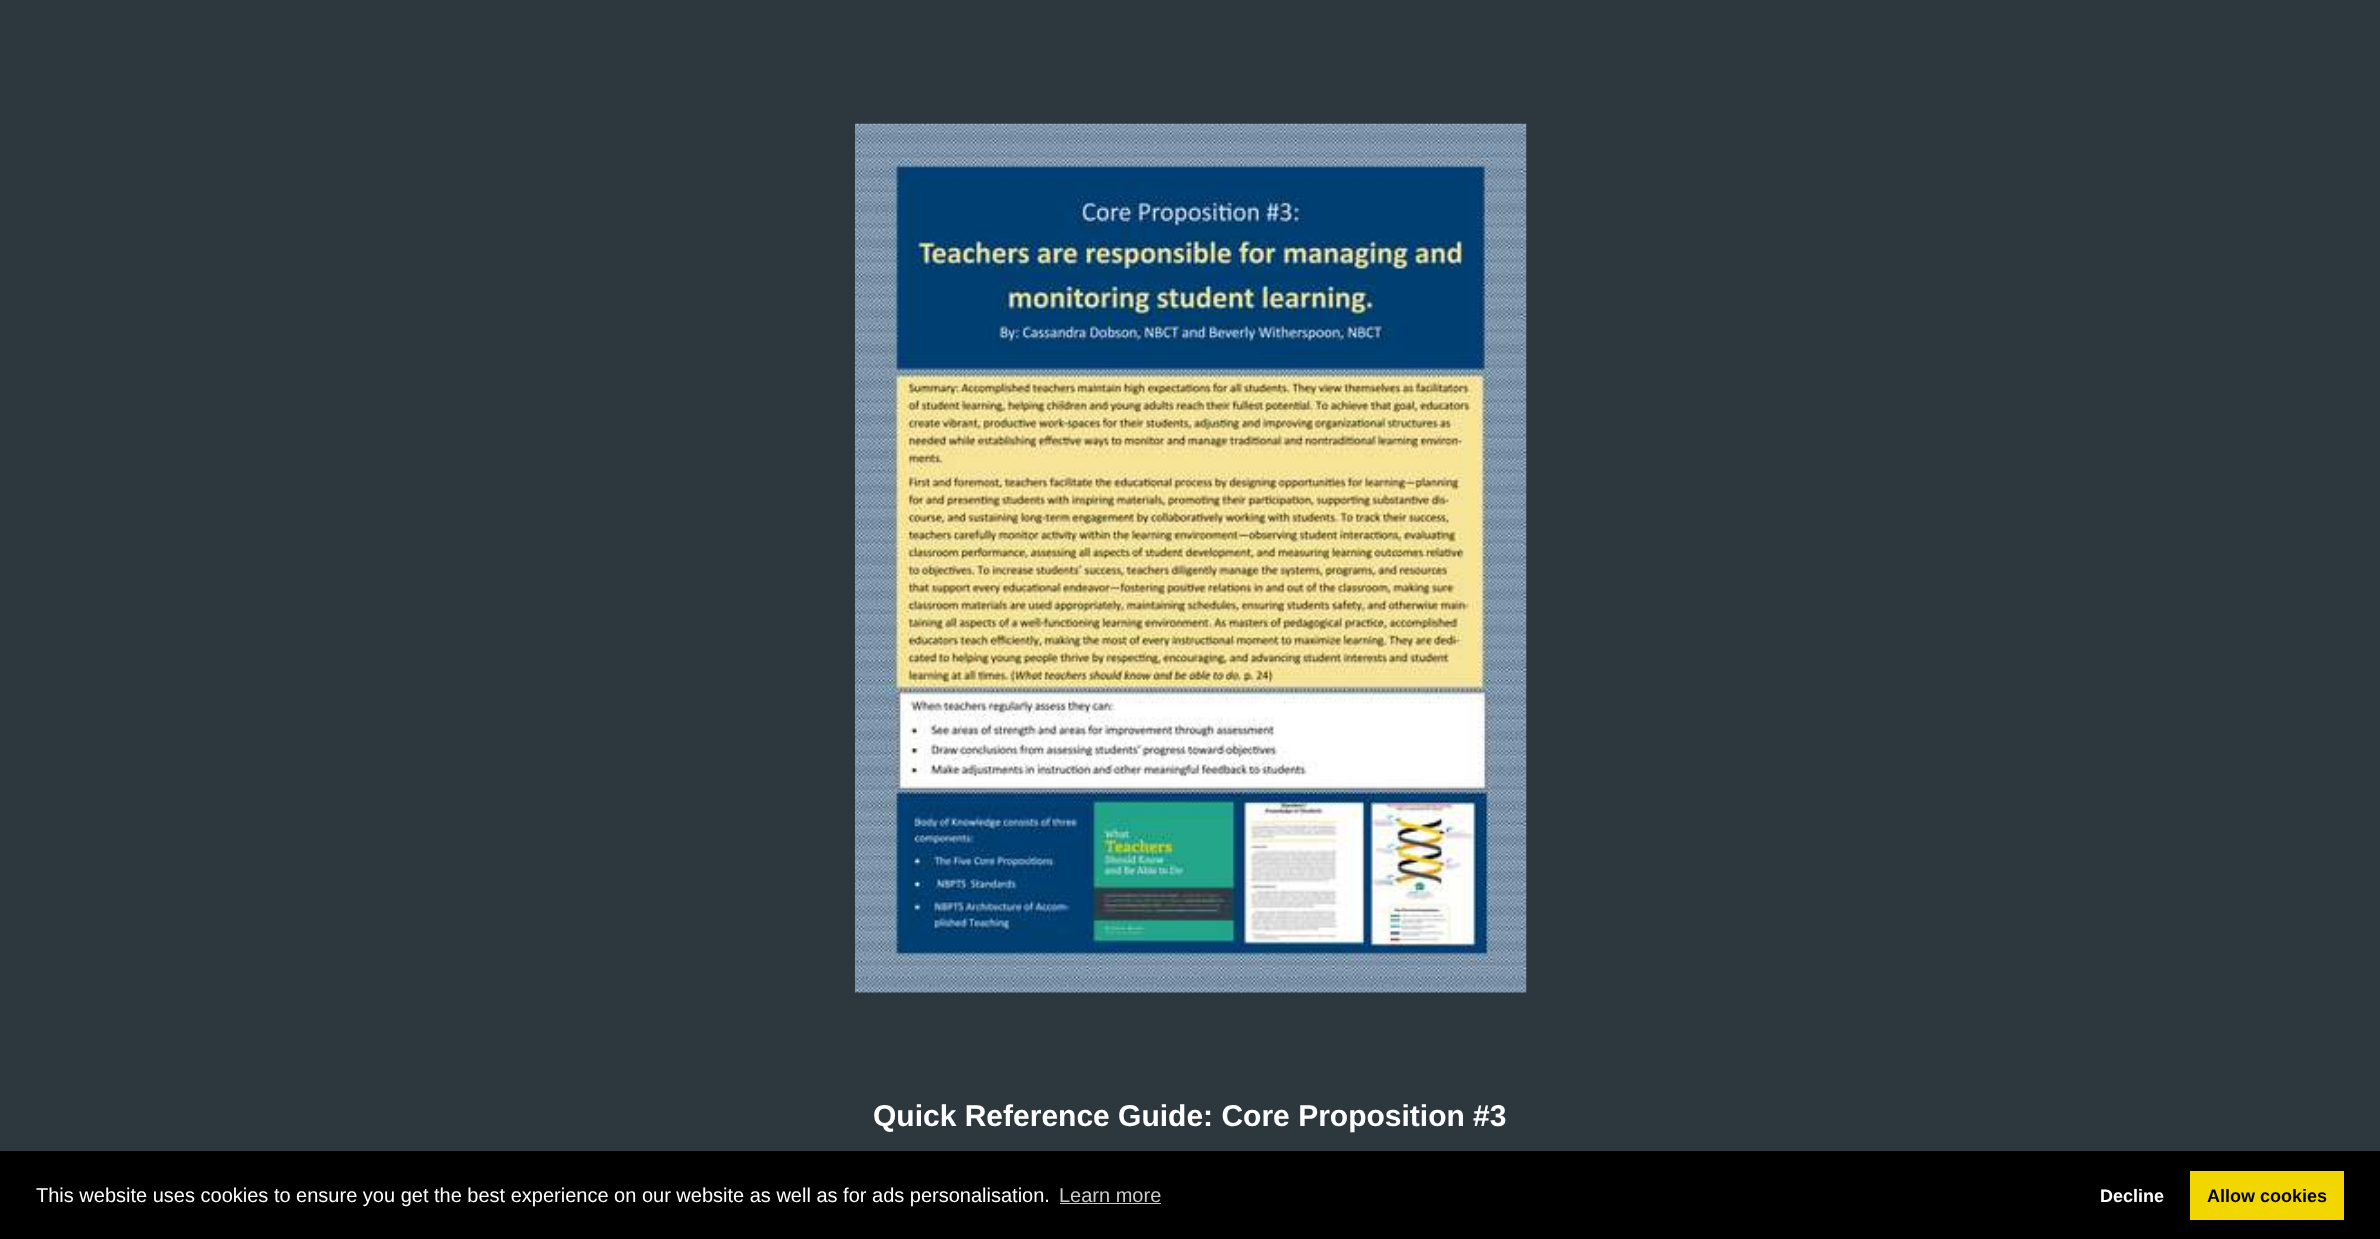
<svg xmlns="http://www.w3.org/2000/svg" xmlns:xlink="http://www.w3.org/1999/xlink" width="2380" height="1239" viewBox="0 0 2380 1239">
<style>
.cls-1{font:bold 30px Liberation Sans;fill:#ffffff}
.cls-2{font:20px Liberation Sans;fill:#ffffff}
.cls-3{font:20px Liberation Sans;fill:#cccccc}
.cls-4{font:bold 18px Liberation Sans;fill:#ffffff}
.cls-5{font:bold 18px Liberation Sans;fill:#000000}
</style>
<rect width="100%" height="100%" fill="#2d373e"/>
<image xlink:href="image0.png" x="855" y="123" width="672" height="870"/>
<rect fill="#000000" x="0" y="1151" width="2380" height="88"/>
<rect fill="#cccccc" x="1060" y="1203" width="101" height="1"/>
<rect fill="#f1d600" x="2190" y="1171" width="154" height="49"/>
<text class="cls-1" x="873" y="1126">Quick Reference Guide: Core Proposition #3</text>
<text class="cls-2" x="36" y="1202">This website uses cookies to ensure you get the best experience on our website as well as for ads personalisation.</text>
<text class="cls-3" x="1059" y="1202">Learn more</text>
<text class="cls-4" x="2100" y="1202">Decline</text>
<text class="cls-5" x="2207" y="1202">Allow cookies</text>
</svg>
